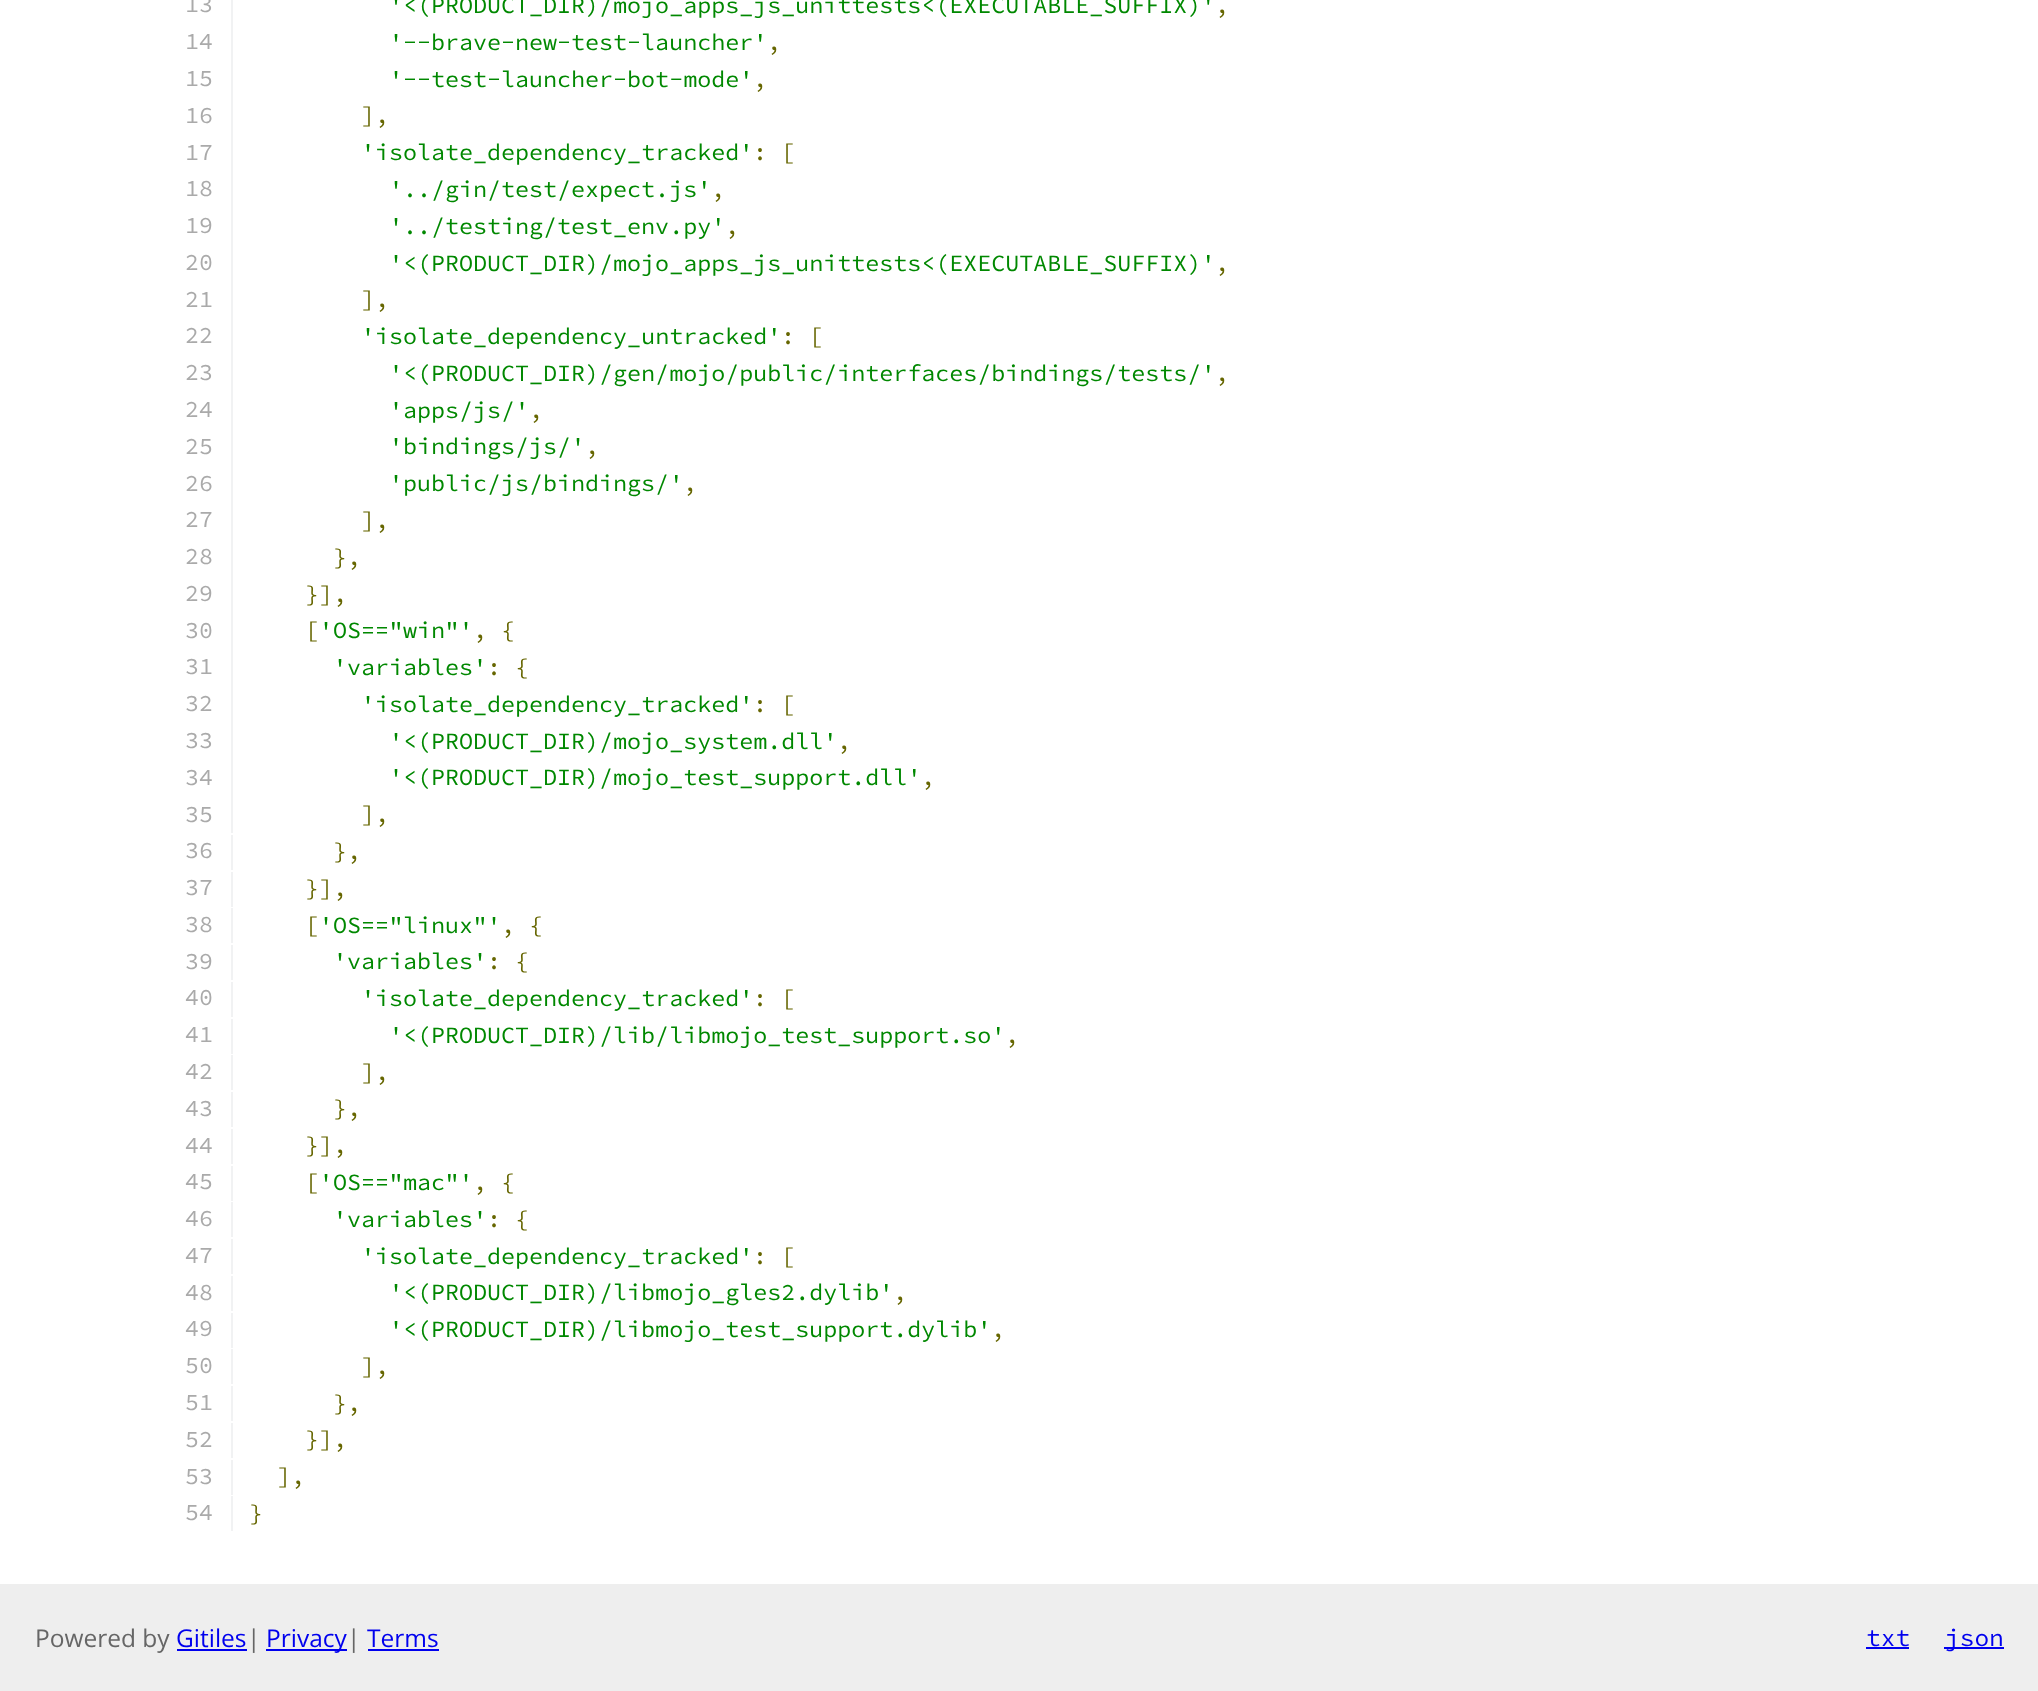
<svg xmlns="http://www.w3.org/2000/svg" xmlns:xlink="http://www.w3.org/1999/xlink" width="2038" height="1691" viewBox="0 0 2038 1691">
<style>
.cls-1{font:200 23.35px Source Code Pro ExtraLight;fill:#aaaaaa}
.cls-2{font:200 23.35px Source Code Pro ExtraLight;fill:#008800}
.cls-3{font:200 23.35px Source Code Pro ExtraLight;fill:#666600}
.cls-4{font:24.5px Open Sans;fill:#666666}
.cls-5{font:24.5px Open Sans;fill:#0000ee}
.cls-6{font:200 24.5px Source Code Pro ExtraLight;fill:#0000ee}
</style>
<rect width="100%" height="100%" fill="#ffffff"/>
<rect fill="#f1f2f3" x="231" y="0" width="2" height="833"/>
<rect fill="#f1f2f3" x="231" y="835" width="2" height="35"/>
<rect fill="#f1f2f3" x="231" y="872" width="2" height="35"/>
<rect fill="#f1f2f3" x="231" y="908" width="2" height="35"/>
<rect fill="#f1f2f3" x="231" y="945" width="2" height="35"/>
<rect fill="#f1f2f3" x="231" y="982" width="2" height="35"/>
<rect fill="#f1f2f3" x="231" y="1019" width="2" height="35"/>
<rect fill="#f1f2f3" x="231" y="1055" width="2" height="35"/>
<rect fill="#f1f2f3" x="231" y="1092" width="2" height="35"/>
<rect fill="#f1f2f3" x="231" y="1129" width="2" height="35"/>
<rect fill="#f1f2f3" x="231" y="1166" width="2" height="35"/>
<rect fill="#f1f2f3" x="231" y="1202" width="2" height="35"/>
<rect fill="#f1f2f3" x="231" y="1239" width="2" height="35"/>
<rect fill="#f1f2f3" x="231" y="1276" width="2" height="35"/>
<rect fill="#f1f2f3" x="231" y="1313" width="2" height="35"/>
<rect fill="#f1f2f3" x="231" y="1349" width="2" height="35"/>
<rect fill="#f1f2f3" x="231" y="1386" width="2" height="35"/>
<rect fill="#f1f2f3" x="231" y="1423" width="2" height="35"/>
<rect fill="#f1f2f3" x="231" y="1460" width="2" height="35"/>
<rect fill="#f1f2f3" x="231" y="1496" width="2" height="35"/>
<rect fill="#eeeeee" x="0" y="1584" width="2038" height="107"/>
<rect fill="#0000ee" x="177" y="1649" width="70" height="2"/>
<rect fill="#0000ee" x="266" y="1649" width="81" height="2"/>
<rect fill="#0000ee" x="368" y="1649" width="71" height="2"/>
<rect fill="#0000ee" x="1866" y="1647" width="43" height="2"/>
<rect fill="#0000ee" x="1944" y="1647" width="60" height="2"/>
<text class="cls-1" x="185" y="12">13</text>
<text class="cls-2" x="389" y="13">'&lt;(PRODUCT_DIR)/mojo_apps_js_unittests&lt;(EXECUTABLE_SUFFIX)'</text>
<text class="cls-3" x="1215" y="13">,</text>
<text class="cls-1" x="185" y="49">14</text>
<text class="cls-2" x="389" y="50">'--brave-new-test-launcher'</text>
<text class="cls-3" x="767" y="50">,</text>
<text class="cls-1" x="185" y="86">15</text>
<text class="cls-2" x="389" y="87">'--test-launcher-bot-mode'</text>
<text class="cls-3" x="753" y="87">,</text>
<text class="cls-1" x="185" y="123">16</text>
<text class="cls-3" x="361" y="123">],</text>
<text class="cls-1" x="185" y="160">17</text>
<text class="cls-2" x="361" y="160">'isolate_dependency_tracked'</text>
<text class="cls-3" x="753" y="160">: [</text>
<text class="cls-1" x="185" y="196">18</text>
<text class="cls-2" x="389" y="197">'../gin/test/expect.js'</text>
<text class="cls-3" x="711" y="197">,</text>
<text class="cls-1" x="185" y="233">19</text>
<text class="cls-2" x="389" y="234">'../testing/test_env.py'</text>
<text class="cls-3" x="725" y="234">,</text>
<text class="cls-1" x="185" y="270">20</text>
<text class="cls-2" x="389" y="271">'&lt;(PRODUCT_DIR)/mojo_apps_js_unittests&lt;(EXECUTABLE_SUFFIX)'</text>
<text class="cls-3" x="1215" y="271">,</text>
<text class="cls-1" x="185" y="307">21</text>
<text class="cls-3" x="361" y="307">],</text>
<text class="cls-1" x="185" y="343">22</text>
<text class="cls-2" x="361" y="344">'isolate_dependency_untracked'</text>
<text class="cls-3" x="781" y="344">: [</text>
<text class="cls-1" x="185" y="380">23</text>
<text class="cls-2" x="389" y="381">'&lt;(PRODUCT_DIR)/gen/mojo/public/interfaces/bindings/tests/'</text>
<text class="cls-3" x="1215" y="381">,</text>
<text class="cls-1" x="185" y="417">24</text>
<text class="cls-2" x="389" y="418">'apps/js/'</text>
<text class="cls-3" x="529" y="418">,</text>
<text class="cls-1" x="185" y="454">25</text>
<text class="cls-2" x="389" y="454">'bindings/js/'</text>
<text class="cls-3" x="585" y="454">,</text>
<text class="cls-1" x="185" y="491">26</text>
<text class="cls-2" x="389" y="491">'public/js/bindings/'</text>
<text class="cls-3" x="683" y="491">,</text>
<text class="cls-1" x="185" y="527">27</text>
<text class="cls-3" x="361" y="528">],</text>
<text class="cls-1" x="185" y="564">28</text>
<text class="cls-3" x="333" y="565">},</text>
<text class="cls-1" x="185" y="601">29</text>
<text class="cls-3" x="305" y="602">}],</text>
<text class="cls-1" x="185" y="638">30</text>
<text class="cls-3" x="305" y="638">[</text>
<text class="cls-2" x="319" y="638">'OS=="win"'</text>
<text class="cls-3" x="473" y="638">, {</text>
<text class="cls-1" x="185" y="674">31</text>
<text class="cls-2" x="333" y="675">'variables'</text>
<text class="cls-3" x="487" y="675">: {</text>
<text class="cls-1" x="185" y="711">32</text>
<text class="cls-2" x="361" y="712">'isolate_dependency_tracked'</text>
<text class="cls-3" x="753" y="712">: [</text>
<text class="cls-1" x="185" y="748">33</text>
<text class="cls-2" x="389" y="749">'&lt;(PRODUCT_DIR)/mojo_system.dll'</text>
<text class="cls-3" x="837" y="749">,</text>
<text class="cls-1" x="185" y="785">34</text>
<text class="cls-2" x="389" y="785">'&lt;(PRODUCT_DIR)/mojo_test_support.dll'</text>
<text class="cls-3" x="921" y="785">,</text>
<text class="cls-1" x="185" y="822">35</text>
<text class="cls-3" x="361" y="822">],</text>
<text class="cls-1" x="185" y="858">36</text>
<text class="cls-3" x="333" y="859">},</text>
<text class="cls-1" x="185" y="895">37</text>
<text class="cls-3" x="305" y="896">}],</text>
<text class="cls-1" x="185" y="932">38</text>
<text class="cls-3" x="305" y="933">[</text>
<text class="cls-2" x="319" y="933">'OS=="linux"'</text>
<text class="cls-3" x="501" y="933">, {</text>
<text class="cls-1" x="185" y="969">39</text>
<text class="cls-2" x="333" y="969">'variables'</text>
<text class="cls-3" x="487" y="969">: {</text>
<text class="cls-1" x="185" y="1005">40</text>
<text class="cls-2" x="361" y="1006">'isolate_dependency_tracked'</text>
<text class="cls-3" x="753" y="1006">: [</text>
<text class="cls-1" x="185" y="1042">41</text>
<text class="cls-2" x="389" y="1043">'&lt;(PRODUCT_DIR)/lib/libmojo_test_support.so'</text>
<text class="cls-3" x="1005" y="1043">,</text>
<text class="cls-1" x="185" y="1079">42</text>
<text class="cls-3" x="361" y="1080">],</text>
<text class="cls-1" x="185" y="1116">43</text>
<text class="cls-3" x="333" y="1116">},</text>
<text class="cls-1" x="185" y="1153">44</text>
<text class="cls-3" x="305" y="1153">}],</text>
<text class="cls-1" x="185" y="1189">45</text>
<text class="cls-3" x="305" y="1190">[</text>
<text class="cls-2" x="319" y="1190">'OS=="mac"'</text>
<text class="cls-3" x="473" y="1190">, {</text>
<text class="cls-1" x="185" y="1226">46</text>
<text class="cls-2" x="333" y="1227">'variables'</text>
<text class="cls-3" x="487" y="1227">: {</text>
<text class="cls-1" x="185" y="1263">47</text>
<text class="cls-2" x="361" y="1264">'isolate_dependency_tracked'</text>
<text class="cls-3" x="753" y="1264">: [</text>
<text class="cls-1" x="185" y="1300">48</text>
<text class="cls-2" x="389" y="1300">'&lt;(PRODUCT_DIR)/libmojo_gles2.dylib'</text>
<text class="cls-3" x="893" y="1300">,</text>
<text class="cls-1" x="185" y="1336">49</text>
<text class="cls-2" x="389" y="1337">'&lt;(PRODUCT_DIR)/libmojo_test_support.dylib'</text>
<text class="cls-3" x="991" y="1337">,</text>
<text class="cls-1" x="185" y="1373">50</text>
<text class="cls-3" x="361" y="1374">],</text>
<text class="cls-1" x="185" y="1410">51</text>
<text class="cls-3" x="333" y="1411">},</text>
<text class="cls-1" x="185" y="1447">52</text>
<text class="cls-3" x="305" y="1447">}],</text>
<text class="cls-1" x="185" y="1484">53</text>
<text class="cls-3" x="277" y="1484">],</text>
<text class="cls-1" x="185" y="1520">54</text>
<text class="cls-3" x="249" y="1521">}</text>
<text class="cls-4" x="35" y="1647">Powered by</text>
<text class="cls-5" x="176" y="1647">Gitiles</text>
<text class="cls-4" x="247" y="1647">|</text>
<text class="cls-5" x="266" y="1647">Privacy</text>
<text class="cls-4" x="347" y="1647">|</text>
<text class="cls-5" x="367" y="1647">Terms</text>
<text class="cls-6" x="1866" y="1646">txt</text>
<text class="cls-6" x="1945" y="1646">json</text>
</svg>
